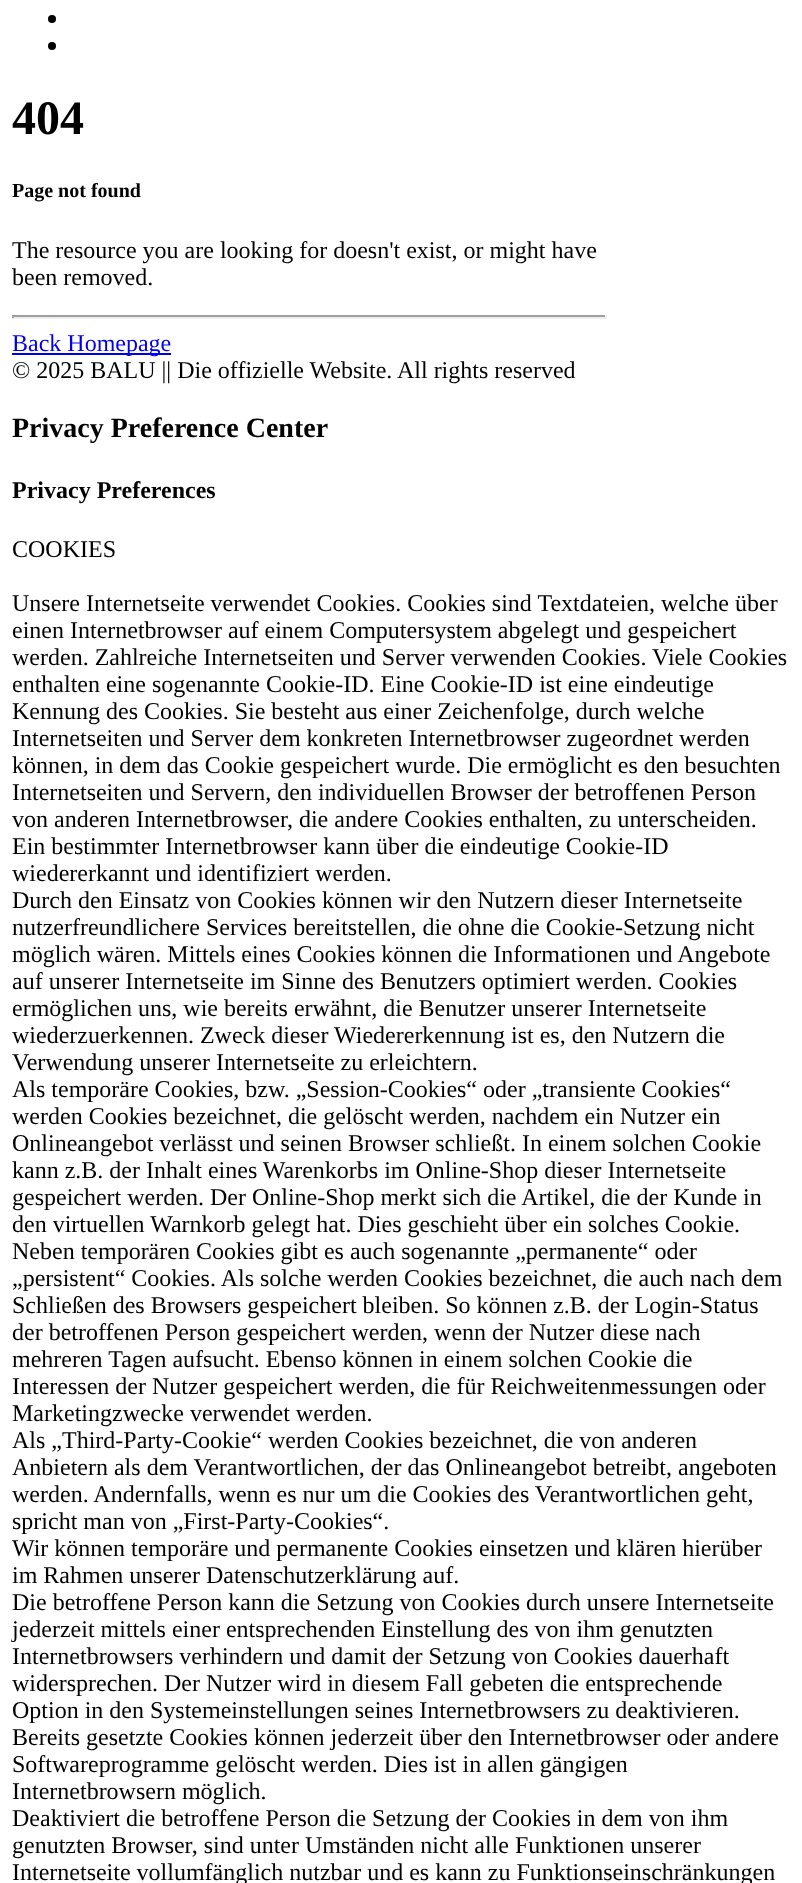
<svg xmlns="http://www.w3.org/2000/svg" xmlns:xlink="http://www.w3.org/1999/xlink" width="802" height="1883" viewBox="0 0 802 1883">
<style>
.cls-1{font:bold 48px Liberation Serif;fill:#000000}
.cls-2{font:bold 20px Liberation Serif;fill:#000000}
.cls-3{font:24px Liberation Serif;fill:#000000}
.cls-4{font:24px Liberation Serif;fill:#0000ee}
.cls-5{font:bold 28px Liberation Serif;fill:#000000}
.cls-6{font:bold 24px Liberation Serif;fill:#000000}
</style>
<rect width="100%" height="100%" fill="#ffffff"/>
<circle fill="#000000" cx="52" cy="19" r="4"/>
<circle fill="#000000" cx="52" cy="46" r="4"/>
<rect fill="#9f9f9f" x="12" y="315" width="594" height="2"/>
<rect fill="#eeeeee" x="605" y="315" width="2" height="3"/>
<rect fill="#eeeeee" x="12" y="317" width="594" height="2"/>
<rect fill="#9f9f9f" x="12" y="315" width="2" height="3"/>
<rect fill="#0000ee" x="12" y="353" width="159" height="2"/>
<text class="cls-1" x="12" y="134">404</text>
<text class="cls-2" x="12" y="197">Page not found</text>
<text class="cls-3"><tspan x="12" y="258">The resource you are looking for doesn't exist, or might have</tspan><tspan x="12" y="285">been removed.</tspan></text>
<text class="cls-4" x="12" y="351">Back Homepage</text>
<text class="cls-3" x="12" y="378">© 2025 BALU || Die offizielle Website. All rights reserved</text>
<text class="cls-5" x="12" y="437">Privacy Preference Center</text>
<text class="cls-6" x="12" y="498">Privacy Preferences</text>
<text class="cls-3" x="12" y="557">COOKIES</text>
<text class="cls-3"><tspan x="12" y="611">Unsere Internetseite verwendet Cookies. Cookies sind Textdateien, welche über</tspan><tspan x="12" y="638">einen Internetbrowser auf einem Computersystem abgelegt und gespeichert</tspan><tspan x="12" y="665">werden. Zahlreiche Internetseiten und Server verwenden Cookies. Viele Cookies</tspan><tspan x="12" y="692">enthalten eine sogenannte Cookie-ID. Eine Cookie-ID ist eine eindeutige</tspan><tspan x="12" y="719">Kennung des Cookies. Sie besteht aus einer Zeichenfolge, durch welche</tspan><tspan x="12" y="746">Internetseiten und Server dem konkreten Internetbrowser zugeordnet werden</tspan><tspan x="12" y="773">können, in dem das Cookie gespeichert wurde. Die ermöglicht es den besuchten</tspan><tspan x="12" y="800">Internetseiten und Servern, den individuellen Browser der betroffenen Person</tspan><tspan x="12" y="827">von anderen Internetbrowser, die andere Cookies enthalten, zu unterscheiden.</tspan><tspan x="12" y="854">Ein bestimmter Internetbrowser kann über die eindeutige Cookie-ID</tspan><tspan x="12" y="881">wiedererkannt und identifiziert werden.</tspan><tspan x="12" y="908">Durch den Einsatz von Cookies können wir den Nutzern dieser Internetseite</tspan><tspan x="12" y="935">nutzerfreundlichere Services bereitstellen, die ohne die Cookie-Setzung nicht</tspan><tspan x="12" y="962">möglich wären. Mittels eines Cookies können die Informationen und Angebote</tspan><tspan x="12" y="989">auf unserer Internetseite im Sinne des Benutzers optimiert werden. Cookies</tspan><tspan x="12" y="1016">ermöglichen uns, wie bereits erwähnt, die Benutzer unserer Internetseite</tspan><tspan x="12" y="1043">wiederzuerkennen. Zweck dieser Wiedererkennung ist es, den Nutzern die</tspan><tspan x="12" y="1070">Verwendung unserer Internetseite zu erleichtern.</tspan><tspan x="12" y="1097">Als temporäre Cookies, bzw. „Session-Cookies“ oder „transiente Cookies“</tspan><tspan x="12" y="1124">werden Cookies bezeichnet, die gelöscht werden, nachdem ein Nutzer ein</tspan><tspan x="12" y="1151">Onlineangebot verlässt und seinen Browser schließt. In einem solchen Cookie</tspan><tspan x="12" y="1178">kann z.B. der Inhalt eines Warenkorbs im Online-Shop dieser Internetseite</tspan><tspan x="12" y="1205">gespeichert werden. Der Online-Shop merkt sich die Artikel, die der Kunde in</tspan><tspan x="12" y="1232">den virtuellen Warnkorb gelegt hat. Dies geschieht über ein solches Cookie.</tspan><tspan x="12" y="1259">Neben temporären Cookies gibt es auch sogenannte „permanente“ oder</tspan><tspan x="12" y="1286">„persistent“ Cookies. Als solche werden Cookies bezeichnet, die auch nach dem</tspan><tspan x="12" y="1313">Schließen des Browsers gespeichert bleiben. So können z.B. der Login-Status</tspan><tspan x="12" y="1340">der betroffenen Person gespeichert werden, wenn der Nutzer diese nach</tspan><tspan x="12" y="1367">mehreren Tagen aufsucht. Ebenso können in einem solchen Cookie die</tspan><tspan x="12" y="1394">Interessen der Nutzer gespeichert werden, die für Reichweitenmessungen oder</tspan><tspan x="12" y="1421">Marketingzwecke verwendet werden.</tspan><tspan x="12" y="1448">Als „Third-Party-Cookie“ werden Cookies bezeichnet, die von anderen</tspan><tspan x="12" y="1475">Anbietern als dem Verantwortlichen, der das Onlineangebot betreibt, angeboten</tspan><tspan x="12" y="1502">werden. Andernfalls, wenn es nur um die Cookies des Verantwortlichen geht,</tspan><tspan x="12" y="1529">spricht man von „First-Party-Cookies“.</tspan><tspan x="12" y="1556">Wir können temporäre und permanente Cookies einsetzen und klären hierüber</tspan><tspan x="12" y="1583">im Rahmen unserer Datenschutzerklärung auf.</tspan><tspan x="12" y="1610">Die betroffene Person kann die Setzung von Cookies durch unsere Internetseite</tspan><tspan x="12" y="1637">jederzeit mittels einer entsprechenden Einstellung des von ihm genutzten</tspan><tspan x="12" y="1664">Internetbrowsers verhindern und damit der Setzung von Cookies dauerhaft</tspan><tspan x="12" y="1691">widersprechen. Der Nutzer wird in diesem Fall gebeten die entsprechende</tspan><tspan x="12" y="1718">Option in den Systemeinstellungen seines Internetbrowsers zu deaktivieren.</tspan><tspan x="12" y="1745">Bereits gesetzte Cookies können jederzeit über den Internetbrowser oder andere</tspan><tspan x="12" y="1772">Softwareprogramme gelöscht werden. Dies ist in allen gängigen</tspan><tspan x="12" y="1799">Internetbrowsern möglich.</tspan><tspan x="12" y="1826">Deaktiviert die betroffene Person die Setzung der Cookies in dem von ihm</tspan><tspan x="12" y="1853">genutzten Browser, sind unter Umständen nicht alle Funktionen unserer</tspan><tspan x="12" y="1880">Internetseite vollumfänglich nutzbar und es kann zu Funktionseinschränkungen</tspan></text>
</svg>
